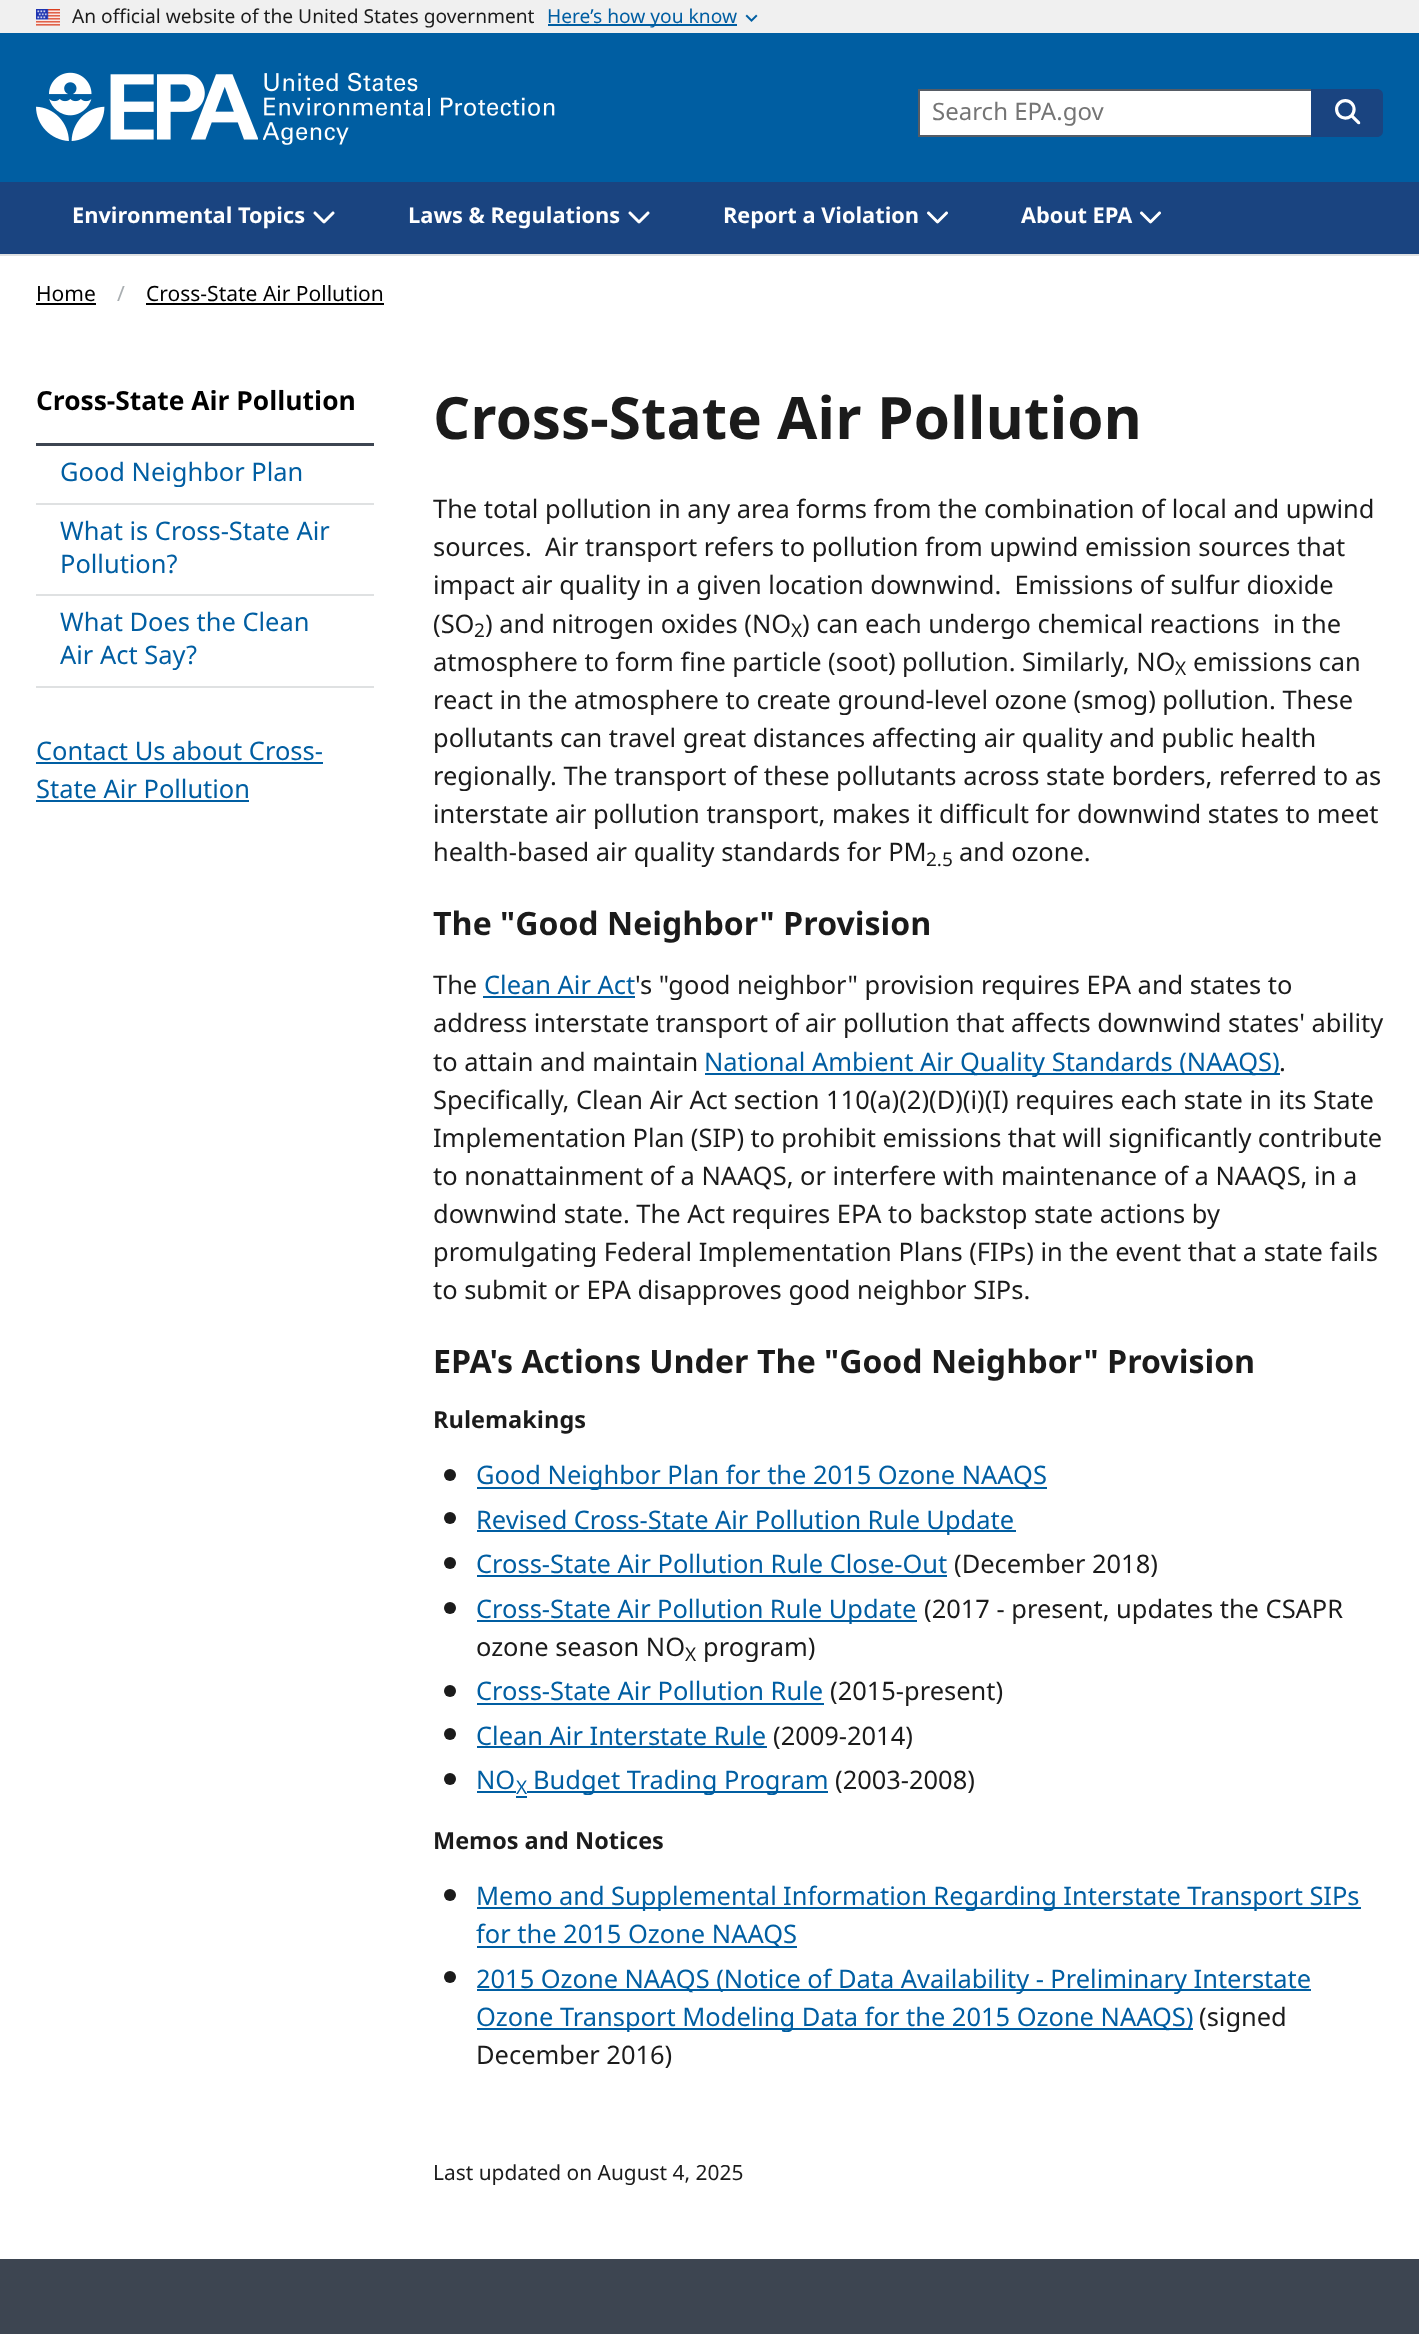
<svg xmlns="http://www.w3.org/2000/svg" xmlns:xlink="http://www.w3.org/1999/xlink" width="1419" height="2334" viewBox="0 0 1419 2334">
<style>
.cls-1{font:19.2px Noto Sans Arabic;fill:#1b1b1b}
.cls-2{font:19.2px Noto Sans Arabic;fill:#005ea2}
.cls-3{font:24px Noto Sans Arabic;fill:#757575}
.cls-4{font:bold 21.75px Noto Sans Arabic;fill:#ffffff}
.cls-5{font:21px Noto Sans Arabic;fill:#000000}
.cls-6{font:21px Noto Sans Arabic;fill:#a9aeb1}
.cls-7{font:bold 26.4px Noto Sans Arabic;fill:#000000}
.cls-8{font:25.45px Noto Sans Arabic;fill:#005ea2}
.cls-9{font:bold 58.5px Noto Sans Arabic;fill:#1b1b1b}
.cls-10{font:25.45px Noto Sans Arabic;fill:#1b1b1b}
.cls-11{font:19px Noto Sans Arabic;fill:#1b1b1b}
.cls-12{font:bold 32.15px Noto Sans Arabic;fill:#1b1b1b}
.cls-13{font:bold 23.5px Noto Sans Arabic;fill:#1b1b1b}
.cls-14{font:19px Noto Sans Arabic;fill:#005ea2}
.cls-15{font:20.9px Noto Sans Arabic;fill:#1b1b1b}
</style>
<rect width="100%" height="100%" fill="#ffffff"/>
<rect fill="#f0f0f0" x="0" y="0" width="1419" height="33"/>
<image xlink:href="image0.png" x="36" y="9" width="24" height="17"/>
<rect fill="#005ea2" x="548" y="24" width="189" height="2"/>
<image xlink:href="image1.png" x="745" y="14" width="13" height="8"/>
<rect fill="#005ea2" x="0" y="33" width="1419" height="149"/>
<image xlink:href="image2.png" x="36" y="72" width="222" height="69"/>
<image xlink:href="image3.png" x="263" y="72" width="292" height="73"/>
<rect fill="#ffffff" x="920" y="91" width="391" height="44"/>
<rect fill="#565c65" x="918" y="89" width="393" height="2"/>
<rect fill="#565c65" x="918" y="135" width="393" height="2"/>
<rect fill="#565c65" x="918" y="89" width="2" height="48"/>
<path fill="#1a4480" d="M1311 89H1377C1380.5 89 1383 91.5 1383 95V131C1383 134.5 1380.5 137 1377 137H1311Z"/>
<image xlink:href="image4.png" x="1335" y="99" width="26" height="26"/>
<rect fill="#1a4480" x="0" y="182" width="1419" height="72"/>
<image xlink:href="image5.png" x="313" y="211" width="22" height="13"/>
<image xlink:href="image5.png" x="628" y="211" width="22" height="13"/>
<image xlink:href="image6.png" x="927" y="211" width="21" height="13"/>
<image xlink:href="image6.png" x="1140" y="211" width="21" height="13"/>
<rect fill="#dfe1e2" x="0" y="254" width="1419" height="2"/>
<rect fill="#000000" x="36" y="303" width="60" height="2"/>
<rect fill="#000000" x="146" y="303" width="238" height="2"/>
<rect fill="#3d4551" x="36" y="443" width="338" height="3"/>
<rect fill="#dfe1e2" x="36" y="686" width="338" height="2"/>
<rect fill="#dfe1e2" x="36" y="503" width="338" height="2"/>
<rect fill="#dfe1e2" x="36" y="594" width="338" height="2"/>
<rect fill="#005ea2" x="36" y="762" width="287" height="2"/>
<rect fill="#005ea2" x="36" y="800" width="213" height="2"/>
<rect fill="#005ea2" x="483" y="996" width="152" height="2"/>
<rect fill="#005ea2" x="705" y="1073" width="575" height="2"/>
<circle fill="#1b1b1b" cx="450" cy="1475" r="6"/>
<rect fill="#005ea2" x="477" y="1487" width="570" height="2"/>
<circle fill="#1b1b1b" cx="450" cy="1518" r="6"/>
<rect fill="#005ea2" x="477" y="1530" width="539" height="2"/>
<circle fill="#1b1b1b" cx="450" cy="1563" r="6"/>
<rect fill="#005ea2" x="477" y="1575" width="470" height="2"/>
<circle fill="#1b1b1b" cx="450" cy="1608" r="6"/>
<rect fill="#005ea2" x="477" y="1620" width="440" height="2"/>
<circle fill="#1b1b1b" cx="450" cy="1691" r="6"/>
<rect fill="#005ea2" x="477" y="1703" width="347" height="2"/>
<circle fill="#1b1b1b" cx="450" cy="1734" r="6"/>
<rect fill="#005ea2" x="477" y="1746" width="290" height="2"/>
<circle fill="#1b1b1b" cx="450" cy="1779" r="6"/>
<rect fill="#005ea2" x="477" y="1791" width="39" height="2"/>
<rect fill="#005ea2" x="527" y="1791" width="301" height="2"/>
<rect fill="#005ea2" x="516" y="1796" width="11" height="2"/>
<circle fill="#1b1b1b" cx="450" cy="1895" r="6"/>
<rect fill="#005ea2" x="477" y="1907" width="884" height="2"/>
<rect fill="#005ea2" x="477" y="1946" width="320" height="2"/>
<circle fill="#1b1b1b" cx="450" cy="1977" r="6"/>
<rect fill="#005ea2" x="477" y="1989" width="834" height="2"/>
<rect fill="#005ea2" x="477" y="2028" width="716" height="2"/>
<rect fill="#3d4551" x="0" y="2259" width="1419" height="75"/>
<text class="cls-1" x="72" y="23">An official website of the United States government</text>
<text class="cls-2" x="547" y="23">Here’s how you know</text>
<text class="cls-3" x="932" y="120">Search EPA.gov</text>
<text class="cls-4" x="72" y="223">Environmental Topics</text>
<text class="cls-4" x="408" y="223">Laws &amp; Regulations</text>
<text class="cls-4" x="723" y="223">Report a Violation</text>
<text class="cls-4" x="1021" y="223">About EPA</text>
<text class="cls-5" x="36" y="301">Home</text>
<text class="cls-6" x="117" y="301">/</text>
<text class="cls-5" x="146" y="301">Cross-State Air Pollution</text>
<text class="cls-7" x="36" y="410">Cross-State Air Pollution</text>
<text class="cls-8" x="60" y="481">Good Neighbor Plan</text>
<text class="cls-8"><tspan x="60" y="540">What is Cross-State Air</tspan><tspan x="60" y="573">Pollution?</tspan></text>
<text class="cls-8"><tspan x="60" y="631">What Does the Clean</tspan><tspan x="60" y="664">Air Act Say?</tspan></text>
<text class="cls-8"><tspan x="36" y="760">Contact Us about Cross-</tspan><tspan x="36" y="798">State Air Pollution</tspan></text>
<text class="cls-9" x="433" y="439">Cross-State Air Pollution</text>
<text class="cls-10" xml:space="preserve"><tspan x="433" y="518">The total pollution in any area forms from the combination of local and upwind</tspan><tspan x="433" y="556">sources.  Air transport refers to pollution from upwind emission sources that</tspan><tspan x="433" y="594">impact air quality in a given location downwind.  Emissions of sulfur dioxide</tspan><tspan x="433" y="633">(SO</tspan></text>
<text class="cls-11" x="474" y="637">2</text>
<text class="cls-10" x="485" y="633">) and nitrogen oxides (NO</text>
<text class="cls-11" x="791" y="637">X</text>
<text class="cls-10" xml:space="preserve" x="802" y="633">) can each undergo chemical reactions  in the</text>
<text class="cls-10" x="433" y="671" word-spacing="-0.1">atmosphere to form fine particle (soot) pollution. Similarly, NO</text>
<text class="cls-11" x="1175" y="675">X</text>
<text class="cls-10" x="1193" y="671">emissions can</text>
<text class="cls-10"><tspan x="433" y="709" word-spacing="-0.1">react in the atmosphere to create ground-level ozone (smog) pollution. These</tspan><tspan x="433" y="747">pollutants can travel great distances affecting air quality and public health</tspan><tspan x="433" y="785">regionally. The transport of these pollutants across state borders, referred to as</tspan><tspan x="433" y="823">interstate air pollution transport, makes it difficult for downwind states to meet</tspan><tspan x="433" y="861">health-based air quality standards for PM</tspan></text>
<text class="cls-11" x="926" y="866">2.5</text>
<text class="cls-10" x="959" y="861">and ozone.</text>
<text class="cls-12" x="433" y="935">The "Good Neighbor" Provision</text>
<text class="cls-10" x="433" y="994">The</text>
<text class="cls-8" x="484" y="994">Clean Air Act</text>
<text class="cls-10" x="635" y="994">'s "good neighbor" provision requires EPA and states to</text>
<text class="cls-10"><tspan x="433" y="1032" word-spacing="-0.1">address interstate transport of air pollution that affects downwind states' ability</tspan><tspan x="433" y="1071">to attain and maintain</tspan></text>
<text class="cls-8" x="704" y="1071">National Ambient Air Quality Standards (NAAQS)</text>
<text class="cls-10" x="1279" y="1071">.</text>
<text class="cls-10"><tspan x="433" y="1109">Specifically, Clean Air Act section 110(a)(2)(D)(i)(I) requires each state in its State</tspan><tspan x="433" y="1147" word-spacing="-0.25">Implementation Plan (SIP) to prohibit emissions that will significantly contribute</tspan><tspan x="433" y="1185">to nonattainment of a NAAQS, or interfere with maintenance of a NAAQS, in a</tspan><tspan x="433" y="1223">downwind state. The Act requires EPA to backstop state actions by</tspan><tspan x="433" y="1261">promulgating Federal Implementation Plans (FIPs) in the event that a state fails</tspan><tspan x="433" y="1299">to submit or EPA disapproves good neighbor SIPs.</tspan></text>
<text class="cls-12" x="433" y="1373">EPA's Actions Under The "Good Neighbor" Provision</text>
<text class="cls-13" x="433" y="1428">Rulemakings</text>
<text class="cls-8"><tspan x="476" y="1484">Good Neighbor Plan for the 2015 Ozone NAAQS</tspan><tspan x="476" y="1529" word-spacing="-0.25">Revised Cross-State Air Pollution Rule Update</tspan><tspan x="476" y="1573">Cross-State Air Pollution Rule Close-Out</tspan></text>
<text class="cls-10" x="954" y="1573">(December 2018)</text>
<text class="cls-8" x="476" y="1618" word-spacing="-0.25">Cross-State Air Pollution Rule Update</text>
<text class="cls-10" x="924" y="1618">(2017 - present, updates the CSAPR</text>
<text class="cls-10" x="476" y="1656">ozone season NO</text>
<text class="cls-11" x="685" y="1661">X</text>
<text class="cls-10" x="703" y="1656">program)</text>
<text class="cls-8" x="476" y="1700">Cross-State Air Pollution Rule</text>
<text class="cls-10" x="830" y="1700">(2015-present)</text>
<text class="cls-8" x="476" y="1745">Clean Air Interstate Rule</text>
<text class="cls-10" x="773" y="1745">(2009-2014)</text>
<text class="cls-8" x="476" y="1789">NO</text>
<text class="cls-14" x="516" y="1794">X</text>
<text class="cls-8" x="533" y="1789">Budget Trading Program</text>
<text class="cls-10" x="835" y="1789">(2003-2008)</text>
<text class="cls-13" x="433" y="1849">Memos and Notices</text>
<text class="cls-8"><tspan x="476" y="1905" word-spacing="-0.25">Memo and Supplemental Information Regarding Interstate Transport SIPs</tspan><tspan x="476" y="1943">for the 2015 Ozone NAAQS</tspan><tspan x="476" y="1988" word-spacing="-0.1">2015 Ozone NAAQS (Notice of Data Availability - Preliminary Interstate</tspan><tspan x="476" y="2026">Ozone Transport Modeling Data for the 2015 Ozone NAAQS)</tspan></text>
<text class="cls-10" x="1199" y="2026">(signed</text>
<text class="cls-10" x="476" y="2064">December 2016)</text>
<text class="cls-15" x="433" y="2180">Last updated on August 4, 2025</text>
</svg>
